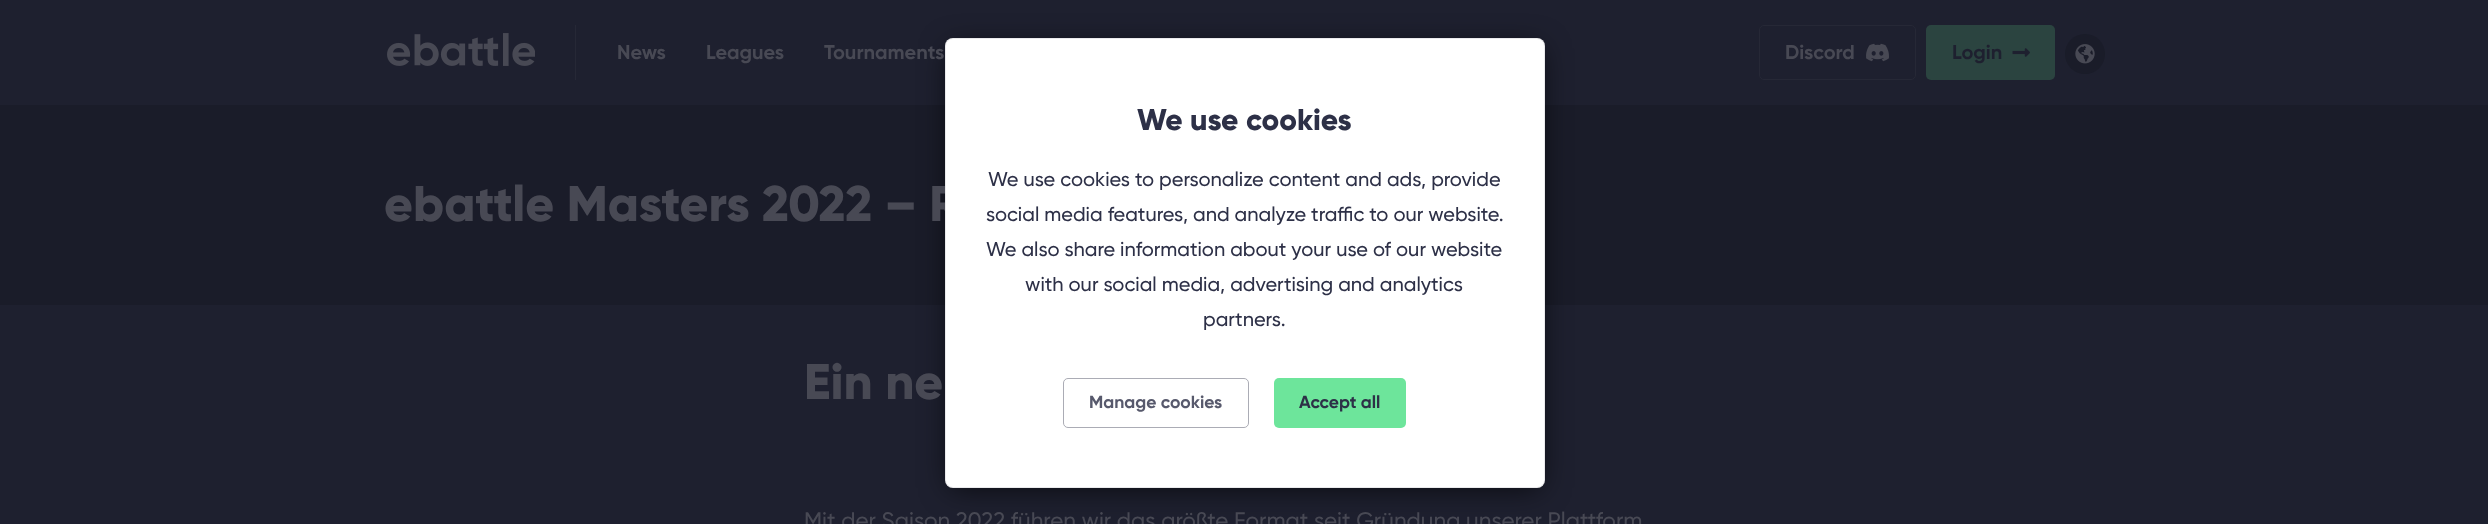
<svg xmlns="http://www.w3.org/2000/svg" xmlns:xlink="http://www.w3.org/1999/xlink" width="2488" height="524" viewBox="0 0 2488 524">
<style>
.cls-1{font:bold 20px Gilroy;fill:#484954}
.cls-2{font:bold 20px Gilroy;fill:#1e202f}
.cls-3{font:800 50px Gilroy;fill:#484954}
.cls-4{font:bold 17.5px Gilroy;fill:#2d3047}
.cls-5{font:bold 17.5px Gilroy;fill:#57596c}
.cls-6{font:500 20px Gilroy;fill:#2d3047}
.cls-7{font:800 30px Gilroy;fill:#2d3047}
.cls-8{font:500 22.5px Gilroy;fill:#484954}
</style>
<rect width="100%" height="100%" fill="#1e202f"/>
<image xlink:href="image0.png" x="387" y="33" width="148" height="33"/>
<rect fill="#262836" x="575" y="25" width="1" height="55"/>
<rect fill="none" stroke="#262836" x="1759.5" y="25.5" width="156" height="54" rx="4.5"/>
<image xlink:href="image1.png" x="1866" y="43" width="23" height="19"/>
<rect fill="#2b4440" x="1926" y="25" width="129" height="55" rx="5"/>
<image xlink:href="image2.png" x="2012" y="48" width="18" height="9"/>
<circle fill="#1a1c29" cx="2085" cy="54" r="20"/>
<image xlink:href="image3.png" x="2075" y="44" width="20" height="20"/>
<rect fill="#1a1c29" x="0" y="105" width="2488" height="200"/>
<rect fill="#000000" fill-opacity="0.7" filter="blur(15px)" x="950" y="48" width="590" height="440" rx="2.5"/>
<text class="cls-1" x="617" y="59">News</text>
<text class="cls-1" x="706" y="59">Leagues</text>
<text class="cls-1" x="824" y="59">Tournaments</text>
<text class="cls-1" x="1785" y="59">Discord</text>
<text class="cls-2" x="1952" y="59">Login</text>
<text class="cls-3" x="384" y="221">ebattle Masters 2022 – R</text>
<rect fill="#ffffff" x="945" y="38" width="600" height="450" rx="8"/>
<rect fill="none" stroke="#2d3047" stroke-opacity="0.1" x="945.5" y="38.5" width="599" height="449" rx="7.5"/>
<rect fill="#6de59b" x="1274" y="378" width="132" height="50" rx="5"/>
<text class="cls-4" x="1299" y="408">Accept all</text>
<rect fill="none" stroke="#abacb5" x="1063.5" y="378.5" width="185" height="49" rx="4.5"/>
<text class="cls-5" x="1089" y="408">Manage cookies</text>
<text class="cls-6" x="1203" y="326">partners.</text>
<text class="cls-6" x="1025" y="291">with our social media, advertising and analytics</text>
<text class="cls-6" x="986" y="256">We also share information about your use of our website</text>
<text class="cls-6" x="986" y="221">social media features, and analyze traffic to our website.</text>
<text class="cls-6" x="988" y="186">We use cookies to personalize content and ads, provide</text>
<text class="cls-7" x="1137" y="130">We use cookies</text>
<text class="cls-3" x="804" y="399">Ein ne</text>
<text class="cls-8" x="804" y="528">Mit der Saison 2022 führen wir das größte Format seit Gründung unserer Plattform</text>
</svg>
